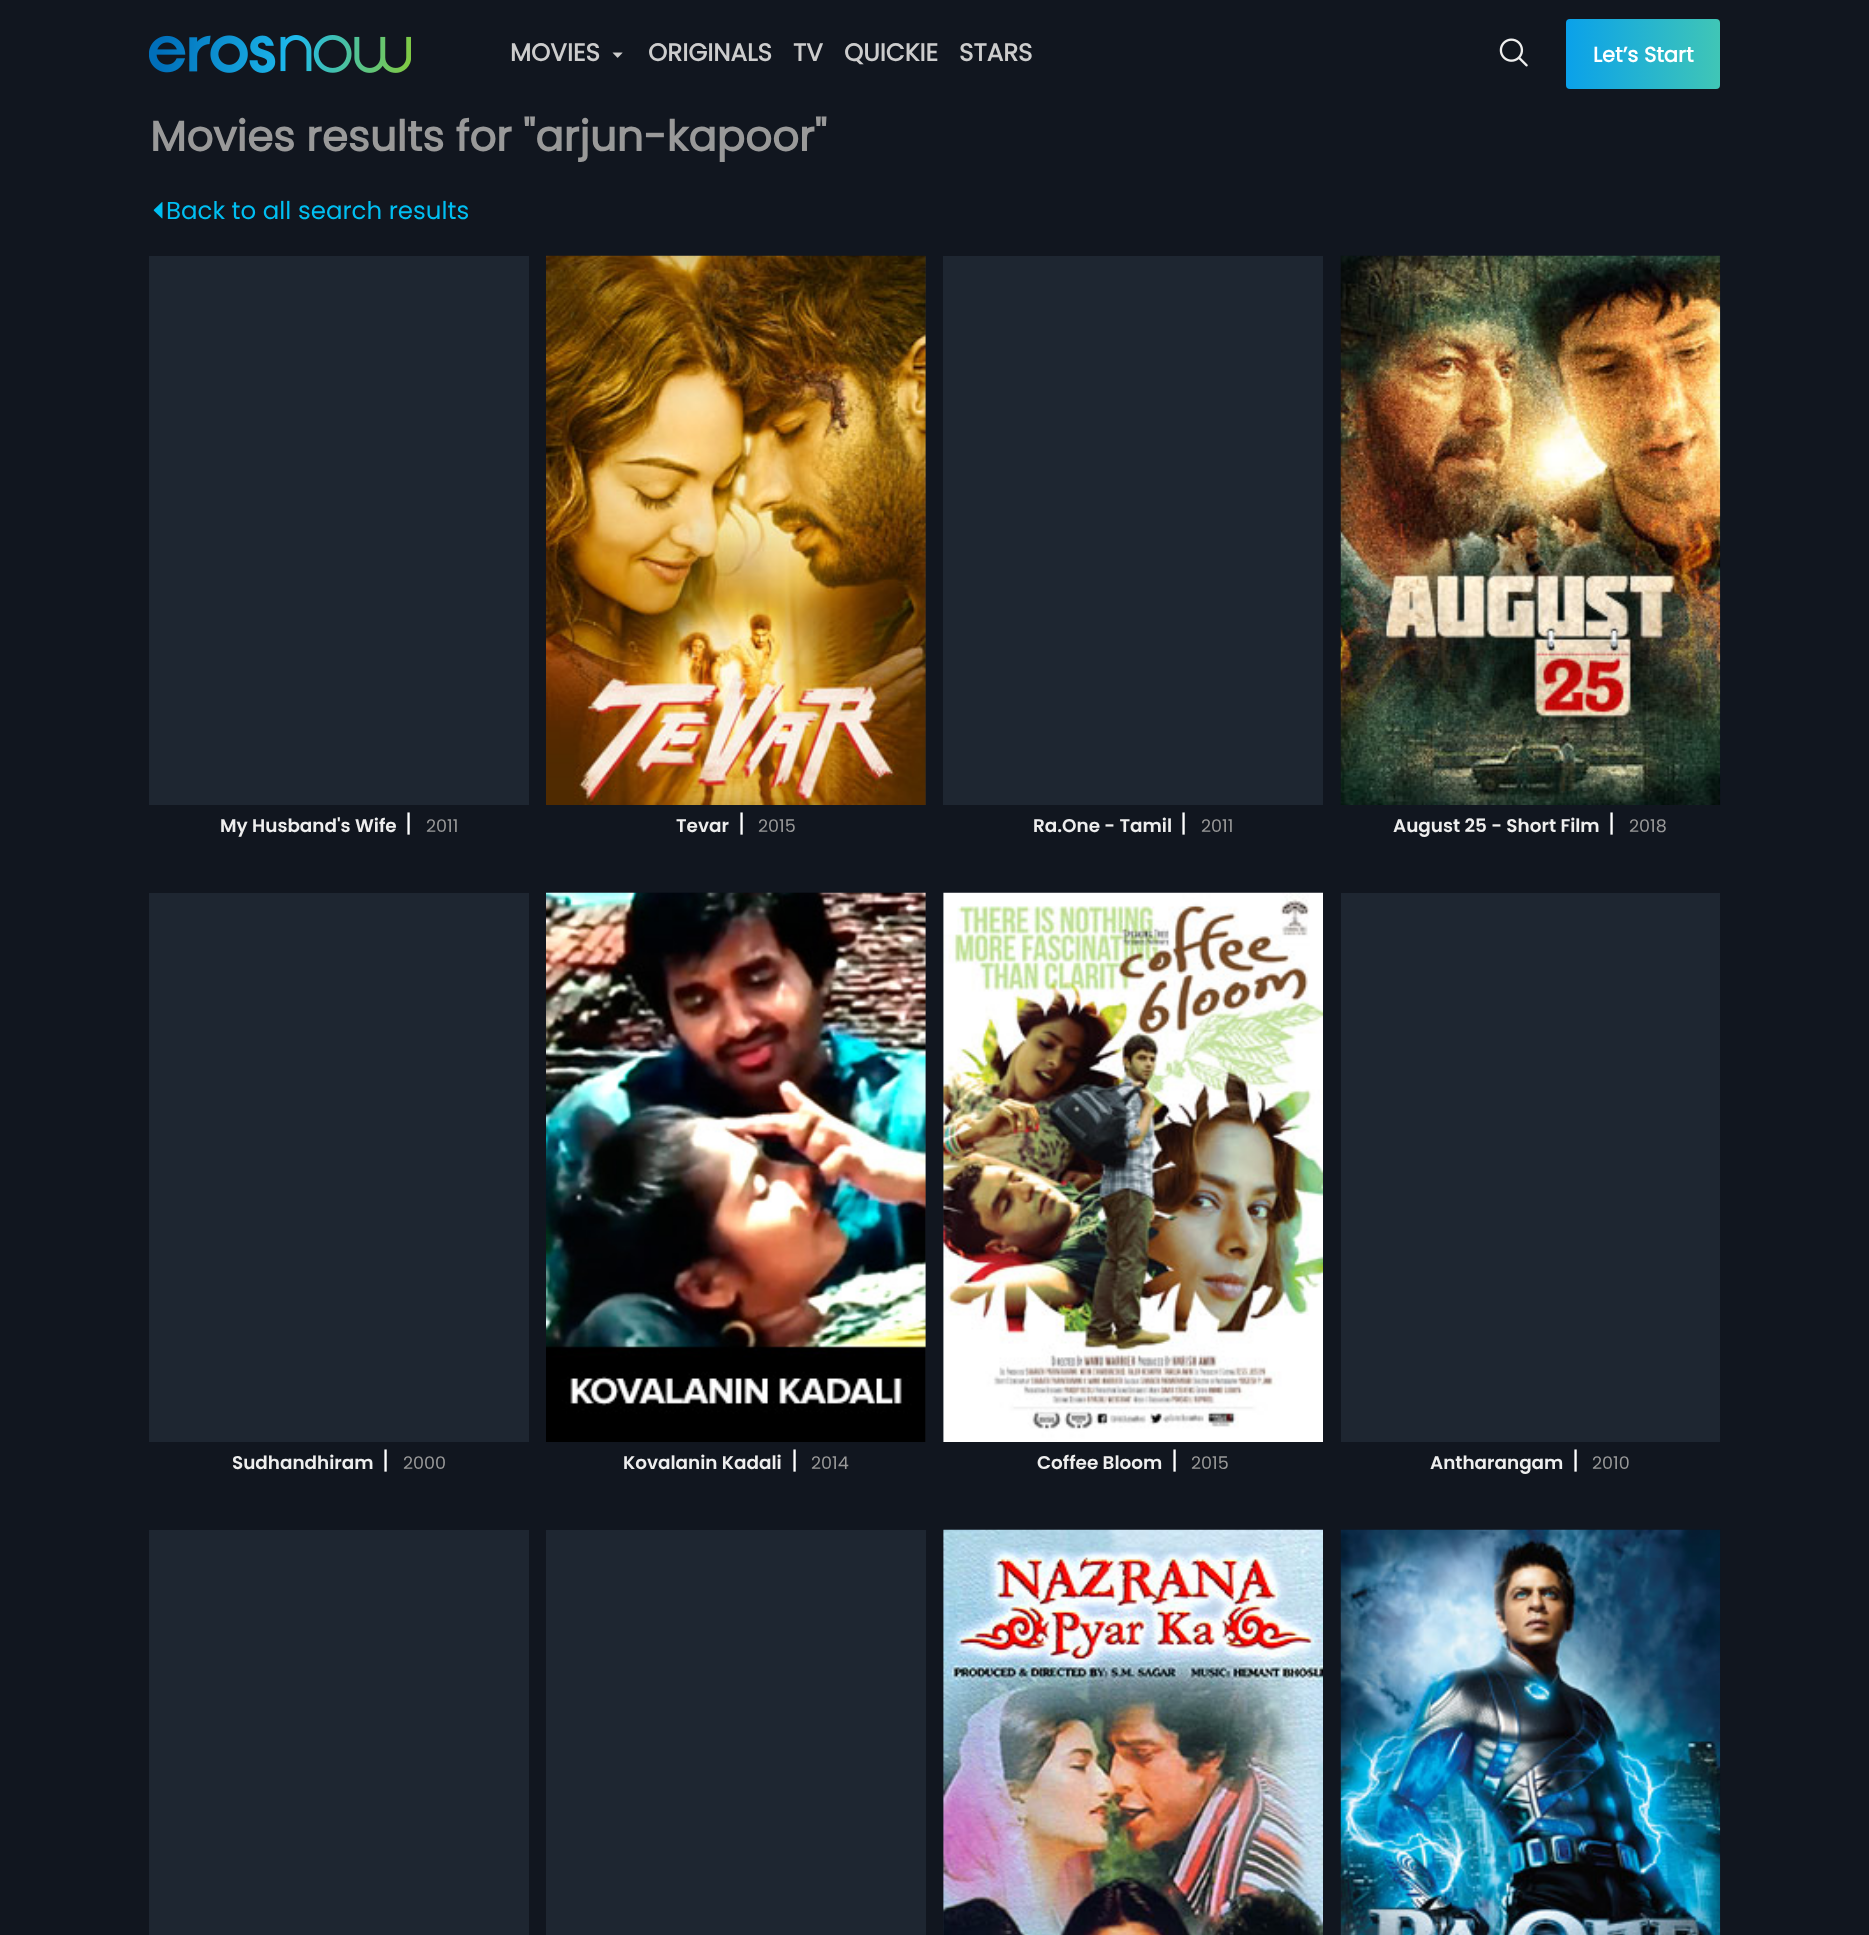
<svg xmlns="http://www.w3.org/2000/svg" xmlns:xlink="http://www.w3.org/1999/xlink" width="1869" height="1935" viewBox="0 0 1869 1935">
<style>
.cls-1{font:bold 24.5px Poppins;fill:#cccccc}
.cls-2{font:bold 21px Poppins;fill:#ffffff}
.cls-3{font:bold 42px Poppins;fill:#999999}
.cls-4{font:24.5px Poppins;fill:#00bff2}
.cls-5{font:600 18.4px Poppins;fill:#eeeeee}
.cls-6{font:24.5px Poppins;fill:#ffffff}
.cls-7{font:17.5px Poppins;fill:#999999}
</style>
<defs>
<linearGradient id="g1" gradientUnits="userSpaceOnUse" x1="1720" y1="54" x2="1566" y2="54"><stop offset="0" stop-color="#40c6b6"/><stop offset="1" stop-color="#0aa1ea"/></linearGradient>
</defs>
<rect width="100%" height="100%" fill="#11161f"/>
<image xlink:href="image0.png" x="149" y="35" width="262" height="38"/>
<image xlink:href="image1.png" x="612" y="52" width="11" height="6"/>
<image xlink:href="image2.png" x="1499" y="38" width="29" height="29"/>
<rect fill="url(#g1)" x="1566" y="19" width="154" height="70" rx="4"/>
<image xlink:href="image3.png" x="153" y="202" width="10" height="17"/>
<rect fill="#1e2631" x="149" y="256" width="380" height="549"/>
<rect fill="#1e2631" x="925" y="256" width="1" height="549"/>
<image xlink:href="image4.png" x="546" y="255" width="380" height="550"/>
<rect fill="#1e2631" x="943" y="256" width="380" height="549"/>
<image xlink:href="image5.png" x="1340" y="255" width="381" height="550"/>
<rect fill="#1e2631" x="149" y="893" width="380" height="549"/>
<rect fill="#1e2631" x="925" y="893" width="1" height="549"/>
<image xlink:href="image6.png" x="546" y="892" width="380" height="550"/>
<rect fill="#1e2631" x="943" y="893" width="1" height="549"/>
<image xlink:href="image7.png" x="943" y="892" width="380" height="550"/>
<rect fill="#1e2631" x="1341" y="893" width="379" height="549"/>
<rect fill="#1e2631" x="149" y="1530" width="380" height="405"/>
<rect fill="#1e2631" x="546" y="1530" width="380" height="405"/>
<rect fill="#1e2631" x="943" y="1530" width="1" height="405"/>
<image xlink:href="image8.png" x="943" y="1529" width="380" height="406"/>
<image xlink:href="image9.png" x="1340" y="1529" width="381" height="406"/>
<text class="cls-1" x="510" y="61">MOVIES</text>
<text class="cls-1" x="648" y="61">ORIGINALS</text>
<text class="cls-1" x="793" y="61">TV</text>
<text class="cls-1" x="844" y="61">QUICKIE</text>
<text class="cls-1" x="959" y="61">STARS</text>
<text class="cls-2" x="1593" y="62">Let’s Start</text>
<text class="cls-3" x="150" y="151">Movies results for "arjun-kapoor"</text>
<text class="cls-4" x="166" y="219">Back to all search results</text>
<text class="cls-5" x="220" y="832">My Husband's Wife</text>
<text class="cls-6" x="405" y="832">|</text>
<text class="cls-7" x="426" y="832">2011</text>
<text class="cls-5" x="676" y="832">Tevar</text>
<text class="cls-6" x="738" y="832">|</text>
<text class="cls-7" x="758" y="832">2015</text>
<text class="cls-5" x="1033" y="832">Ra.One - Tamil</text>
<text class="cls-6" x="1180" y="832">|</text>
<text class="cls-7" x="1201" y="832">2011</text>
<text class="cls-5" x="1393" y="832">August 25 - Short Film</text>
<text class="cls-6" x="1608" y="832">|</text>
<text class="cls-7" x="1629" y="832">2018</text>
<text class="cls-5" x="232" y="1469">Sudhandhiram</text>
<text class="cls-6" x="382" y="1469">|</text>
<text class="cls-7" x="403" y="1469">2000</text>
<text class="cls-5" x="623" y="1469">Kovalanin Kadali</text>
<text class="cls-6" x="791" y="1469">|</text>
<text class="cls-7" x="811" y="1469">2014</text>
<text class="cls-5" x="1037" y="1469">Coffee Bloom</text>
<text class="cls-6" x="1171" y="1469">|</text>
<text class="cls-7" x="1191" y="1469">2015</text>
<text class="cls-5" x="1430" y="1469">Antharangam</text>
<text class="cls-6" x="1572" y="1469">|</text>
<text class="cls-7" x="1592" y="1469">2010</text>
</svg>
